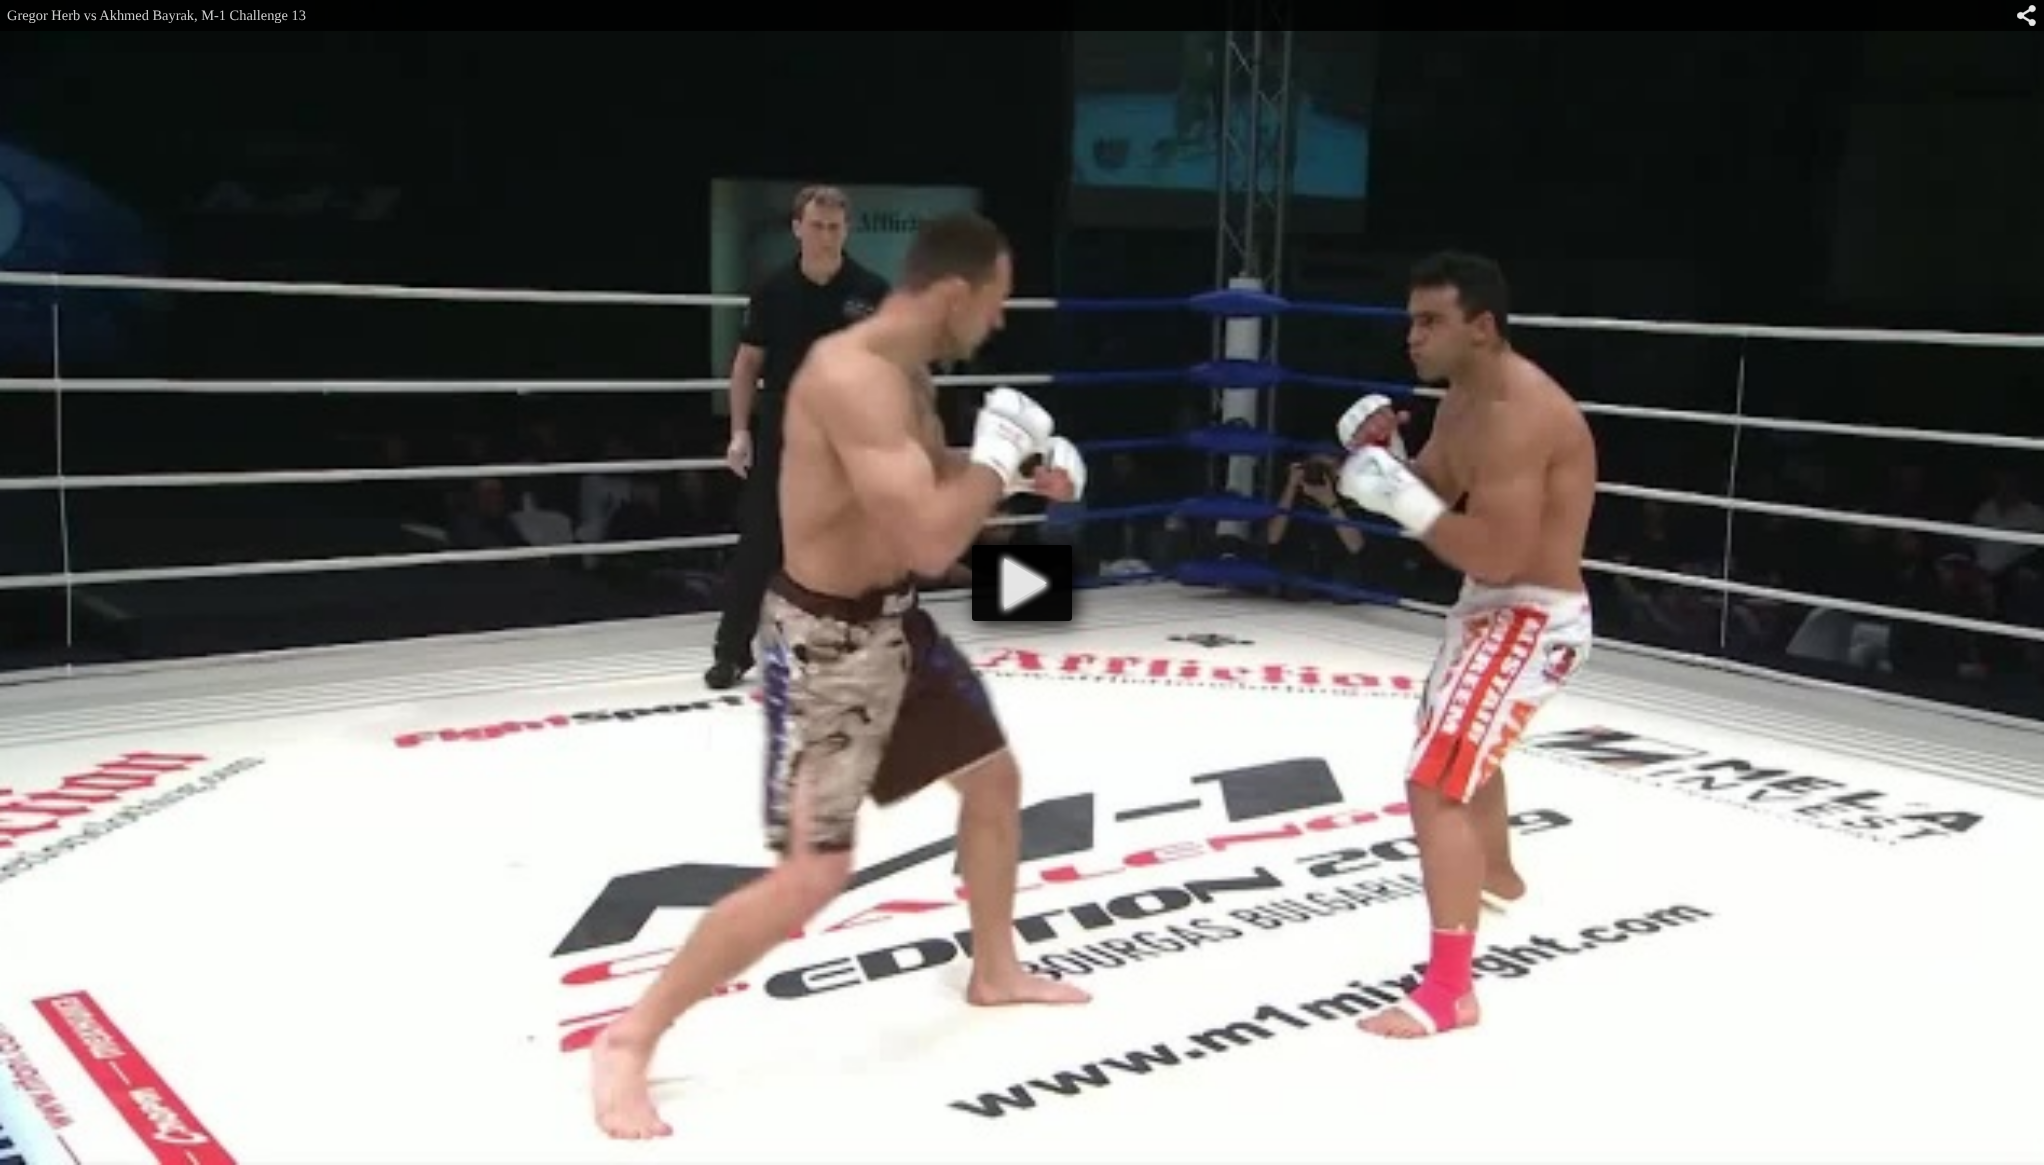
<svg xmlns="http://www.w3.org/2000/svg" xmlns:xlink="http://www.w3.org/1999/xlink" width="2044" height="1165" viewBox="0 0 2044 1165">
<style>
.cls-1{font:14.4px Liberation Serif;fill:#cccccc}
</style>
<defs>
<clipPath id="clip1"><path d="M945 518H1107V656H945ZM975 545H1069C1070.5 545 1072 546.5 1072 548V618C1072 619.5 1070.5 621 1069 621H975C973.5 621 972 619.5 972 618V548C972 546.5 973.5 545 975 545Z" clip-rule="evenodd"/></clipPath>
</defs>
<rect width="100%" height="100%" fill="#ffffff"/>
<image xlink:href="image0.png" x="0" y="0" width="2044" height="1165"/>
<g clip-path="url(#clip1)">
<rect fill="#000000" fill-opacity="0.95" filter="blur(10px)" x="976" y="549" width="100" height="76" rx="3"/>
</g>
<rect fill="#000000" fill-opacity="0.95" x="972" y="545" width="100" height="76" rx="3"/>
<image xlink:href="image1.png" x="996" y="551" width="57" height="66"/>
<rect fill="#000000" fill-opacity="0.8" x="0" y="0" width="2044" height="31"/>
<image xlink:href="image2.png" x="2017" y="5" width="19" height="21"/>
<text class="cls-1" x="7" y="20">Gregor Herb vs Akhmed Bayrak, M-1 Challenge 13</text>
</svg>
